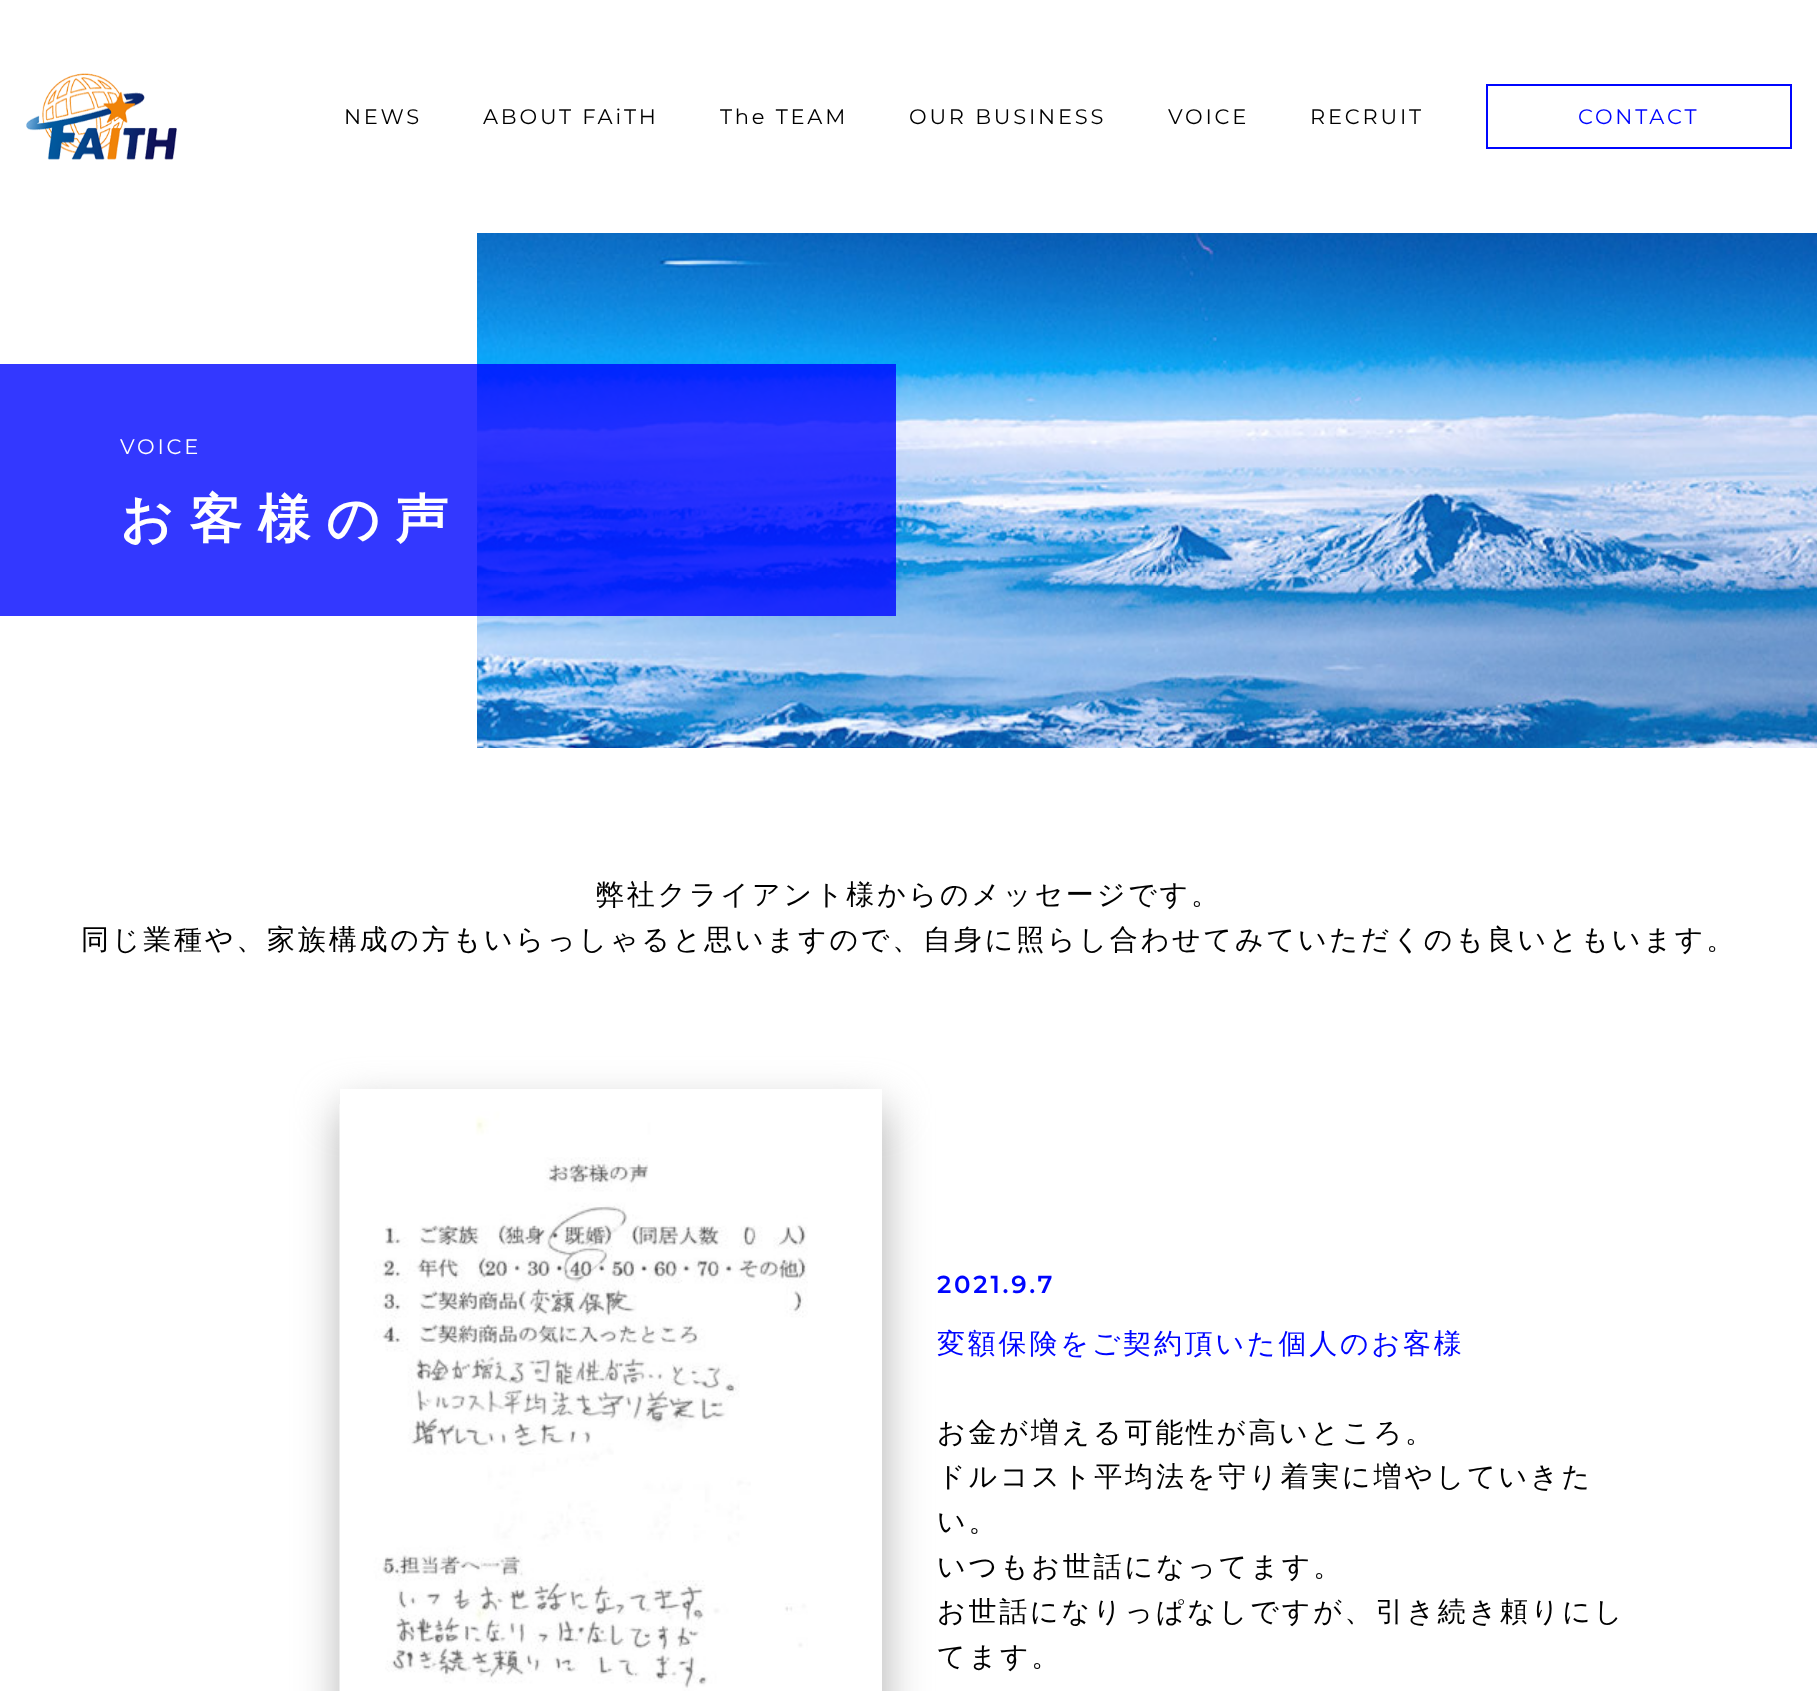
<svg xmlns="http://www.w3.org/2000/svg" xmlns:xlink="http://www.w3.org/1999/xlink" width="1817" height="1691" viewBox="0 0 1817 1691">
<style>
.cls-1{font:21px Montserrat;letter-spacing:2.8px;fill:#000000}
.cls-2{font:21px Montserrat;letter-spacing:2.8px;fill:#0006ff}
.cls-3{font:21px Montserrat;letter-spacing:2.8px;fill:#ffffff}
.cls-4{font:bold 52.5px WenQuanYi Zen Hei;letter-spacing:15.75px;fill:#ffffff}
.cls-5{font:500 28px WenQuanYi Zen Hei;letter-spacing:2.8px;fill:#000000}
.cls-6{font:600 24.5px Montserrat;letter-spacing:2.8px;fill:#0006ff}
.cls-7{font:500 28px WenQuanYi Zen Hei;letter-spacing:2.8px;fill:#0006ff}
</style>
<defs>
<clipPath id="clip1"><path d="M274 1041H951V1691H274ZM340 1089H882V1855H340Z" clip-rule="evenodd"/></clipPath>
</defs>
<rect width="100%" height="100%" fill="#ffffff"/>
<image xlink:href="image0.png" x="26" y="73" width="151" height="87"/>
<rect fill="none" stroke="#0006ff" stroke-width="2" x="1487" y="85" width="304" height="63"/>
<image xlink:href="image1.png" x="477" y="233" width="1340" height="515"/>
<rect fill="#0006ff" fill-opacity="0.8" x="0" y="364" width="896" height="252"/>
<g clip-path="url(#clip1)">
<rect fill="#b2b2b2" filter="blur(22px)" x="341" y="1108" width="543" height="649"/>
</g>
<image xlink:href="image2.png" x="339" y="1104" width="469" height="587"/>
<text class="cls-1" x="344" y="124">NEWS</text>
<text class="cls-1" x="483" y="124">ABOUT FAiTH</text>
<text class="cls-1" x="720" y="124">The TEAM</text>
<text class="cls-1" x="909" y="124">OUR BUSINESS</text>
<text class="cls-1" x="1168" y="124">VOICE</text>
<text class="cls-1" x="1310" y="124">RECRUIT</text>
<text class="cls-2" x="1578" y="124">CONTACT</text>
<text class="cls-3" x="120" y="454">VOICE</text>
<text class="cls-4" x="120" y="537">お客様の声</text>
<text class="cls-5" x="596" y="904">弊社クライアント様からのメッセージです。</text>
<text class="cls-5" x="81" y="949">同じ業種や、家族構成の方もいらっしゃると思いますので、自身に照らし合わせてみていただくのも良いともいます。</text>
<text class="cls-6" x="937" y="1293">2021.9.7</text>
<text class="cls-7" x="937" y="1353">変額保険をご契約頂いた個人のお客様</text>
<text class="cls-5"><tspan x="937" y="1442">お金が増える可能性が高いところ。</tspan><tspan x="937" y="1486">ドルコスト平均法を守り着実に増やしていきた</tspan><tspan x="937" y="1531">い。</tspan><tspan x="937" y="1576">いつもお世話になってます。</tspan><tspan x="937" y="1621">お世話になりっぱなしですが、引き続き頼りにし</tspan><tspan x="937" y="1666">てます。</tspan></text>
</svg>
